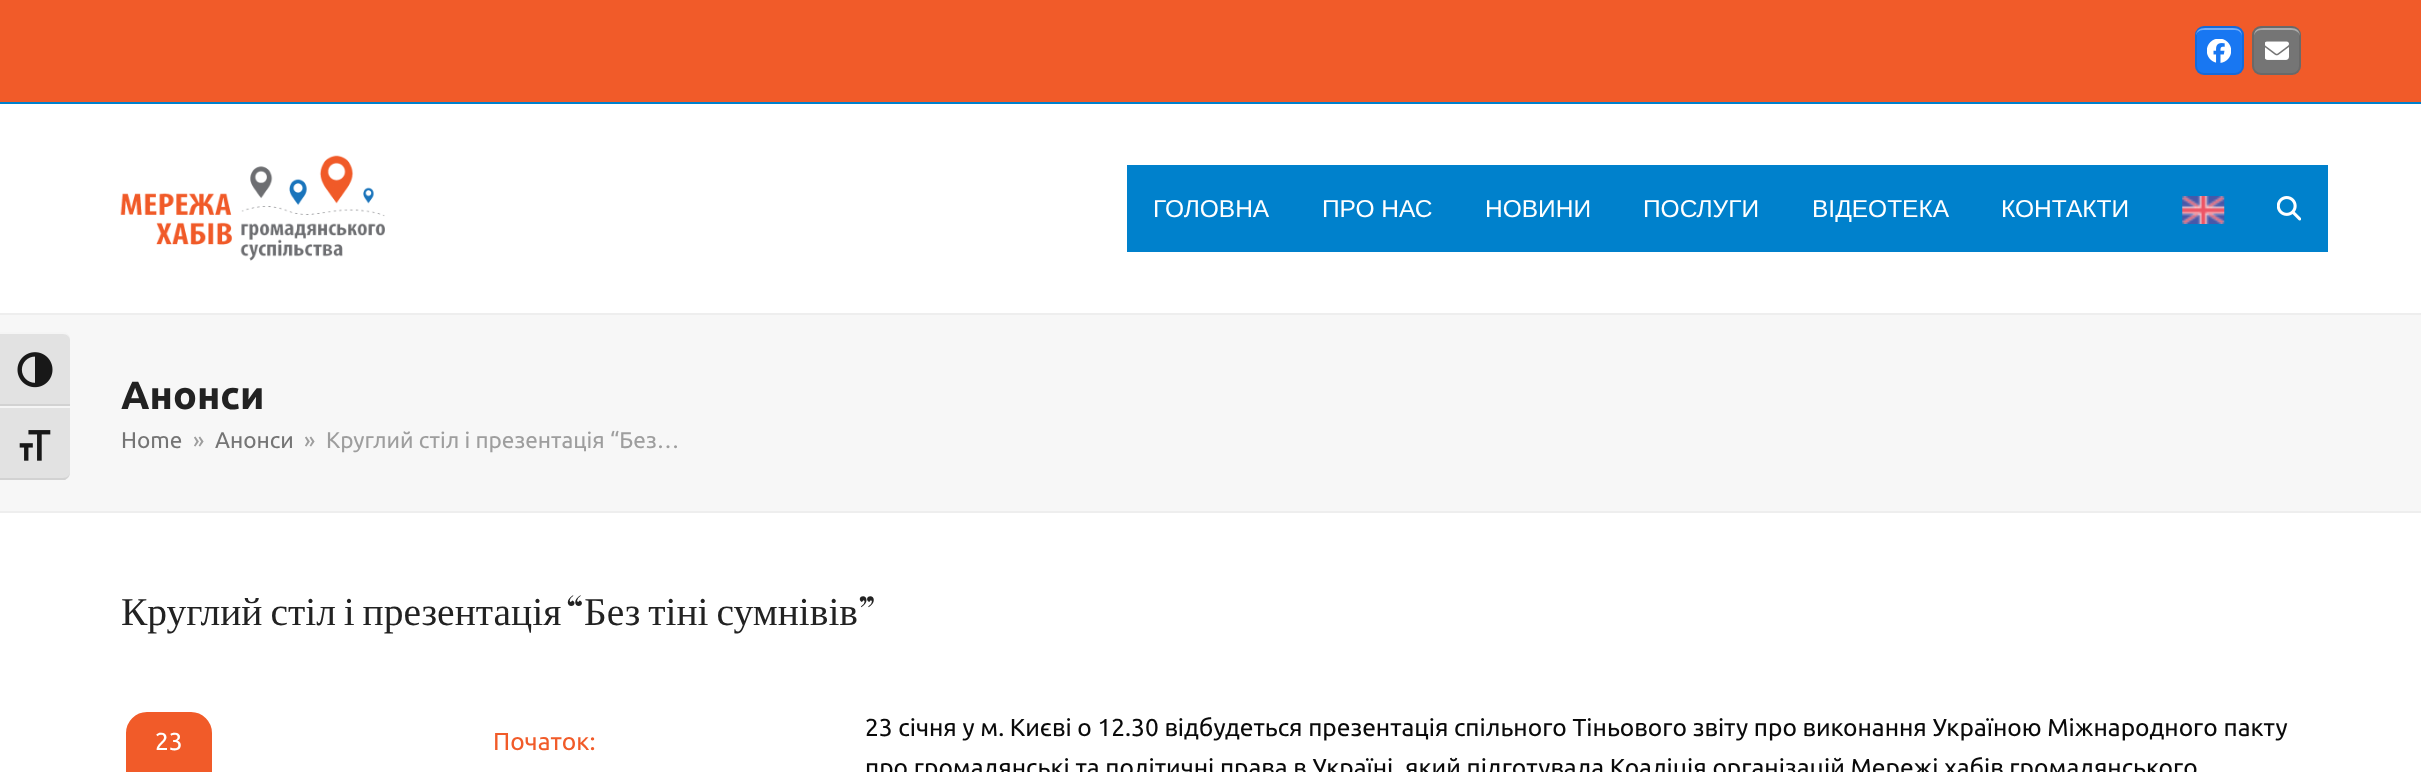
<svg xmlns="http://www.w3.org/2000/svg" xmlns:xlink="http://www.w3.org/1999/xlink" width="2421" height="772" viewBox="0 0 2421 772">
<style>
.cls-1{font:24.5px Liberation Sans;fill:#ffffff}
.cls-2{font:bold 39.5px Ubuntu;fill:#222222}
.cls-3{font:22.6px Ubuntu;fill:#757575}
.cls-4{font:22.6px Ubuntu;fill:#9e9e9e}
.cls-5{font:39.5px Liberation Serif;fill:#222222}
.cls-6{font:39.5px Abril Fatface;fill:#222222}
.cls-7{font:24.5px Ubuntu;fill:#ffffff}
.cls-8{font:24.5px Ubuntu;fill:#f15b29}
.cls-9{font:24.5px Ubuntu;fill:#0a0a0a}
</style>
<rect width="100%" height="100%" fill="#ffffff"/>
<rect fill="#f7f7f7" x="0" y="315" width="2421" height="196"/>
<path fill="#e2e2e2" d="M0 333H63C67 333 70 336 70 340V406H0Z"/>
<path fill="#f5f5f5" d="M0 334H63C67 334 70 337 70 340C70 337 68 334 65 332H0Z"/>
<rect fill="#d2d2d2" x="0" y="404" width="70" height="2"/>
<image xlink:href="image0.png" x="17" y="352" width="36" height="36"/>
<path fill="#e2e2e2" d="M0 406H70V473C70 477 67 480 63 480H0Z"/>
<rect fill="#f5f5f5" x="0" y="406" width="70" height="2"/>
<path fill="#d2d2d2" d="M65 480C68 478 70 475 70 472C70 475 67 478 63 478H0V480Z"/>
<image xlink:href="image1.png" x="19" y="430" width="32" height="31"/>
<rect fill="#f15b29" x="0" y="0" width="2421" height="102"/>
<rect fill="#0081cc" x="0" y="102" width="2421" height="2"/>
<rect fill="#1877f2" x="2195" y="26" width="49" height="49" rx="9"/>
<path fill="#74adf7" d="M2203 30H2235C2239 30 2242 33 2242 37C2242 28 2237 28 2230 28H2208C2201 28 2196 28 2196 37C2196 33 2199 30 2203 30Z"/>
<rect fill="none" stroke="#000000" stroke-opacity="0.1" stroke-width="2" x="2196" y="27" width="47" height="47" rx="8"/>
<image xlink:href="image2.png" x="2207" y="39" width="24" height="24"/>
<rect fill="#757575" x="2252" y="26" width="49" height="49" rx="9"/>
<path fill="#acacac" d="M2261 30H2292C2296 30 2300 33 2300 37C2300 28 2295 28 2288 28H2266C2259 28 2254 28 2254 37C2254 33 2257 30 2261 30Z"/>
<rect fill="none" stroke="#000000" stroke-opacity="0.1" stroke-width="2" x="2253" y="27" width="47" height="47" rx="8"/>
<image xlink:href="image3.png" x="2265" y="41" width="24" height="19"/>
<image xlink:href="image4.png" x="120" y="155" width="265" height="106"/>
<rect fill="#0081cc" x="1127" y="165" width="1201" height="87"/>
<image xlink:href="image5.png" x="2182" y="196" width="43" height="28"/>
<image xlink:href="image6.png" x="2277" y="196" width="24" height="25"/>
<rect fill="#eeeeee" x="0" y="313" width="2421" height="2"/>
<rect fill="#eeeeee" x="0" y="511" width="2421" height="2"/>
<rect fill="#f15b29" stroke="#ffffff" stroke-width="5" x="123.5" y="709.5" width="91" height="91" rx="23.5"/>
<text class="cls-1" x="1153" y="217">ГОЛОВНА</text>
<text class="cls-1" x="1322" y="217">ПРО НАС</text>
<text class="cls-1" x="1485" y="217">НОВИНИ</text>
<text class="cls-1" x="1643" y="217">ПОСЛУГИ</text>
<text class="cls-1" x="1812" y="217">ВІДЕОТЕКА</text>
<text class="cls-1" x="2001" y="217">КОНТАКТИ</text>
<text class="cls-2" x="121" y="409">Анонси</text>
<text class="cls-3" x="121" y="448">Home</text>
<text class="cls-4" x="193" y="448">»</text>
<text class="cls-3" x="215" y="448">Анонси</text>
<text class="cls-4" x="304" y="448">»</text>
<text class="cls-4" x="326" y="448">Круглий стіл і презентація “Без…</text>
<text class="cls-5" x="121" y="625" word-spacing="-2">Круглий стіл і презентація</text>
<text class="cls-6" x="566" y="625">“</text>
<text class="cls-5" x="584" y="625" word-spacing="-2">Без тіні сумнівів</text>
<text class="cls-6" x="858" y="625">”</text>
<text class="cls-7" x="155" y="750">23</text>
<text class="cls-8" x="493" y="750">Початок:</text>
<text class="cls-9"><tspan x="865" y="736">23 січня у м. Києві о 12.30 відбудеться презентація спільного Тіньового звіту про виконання Україною Міжнародного пакту</tspan><tspan x="865" y="776">про громадянські та політичні права в Україні, який підготувала Коаліція організацій Мережі хабів громадянського</tspan></text>
</svg>
